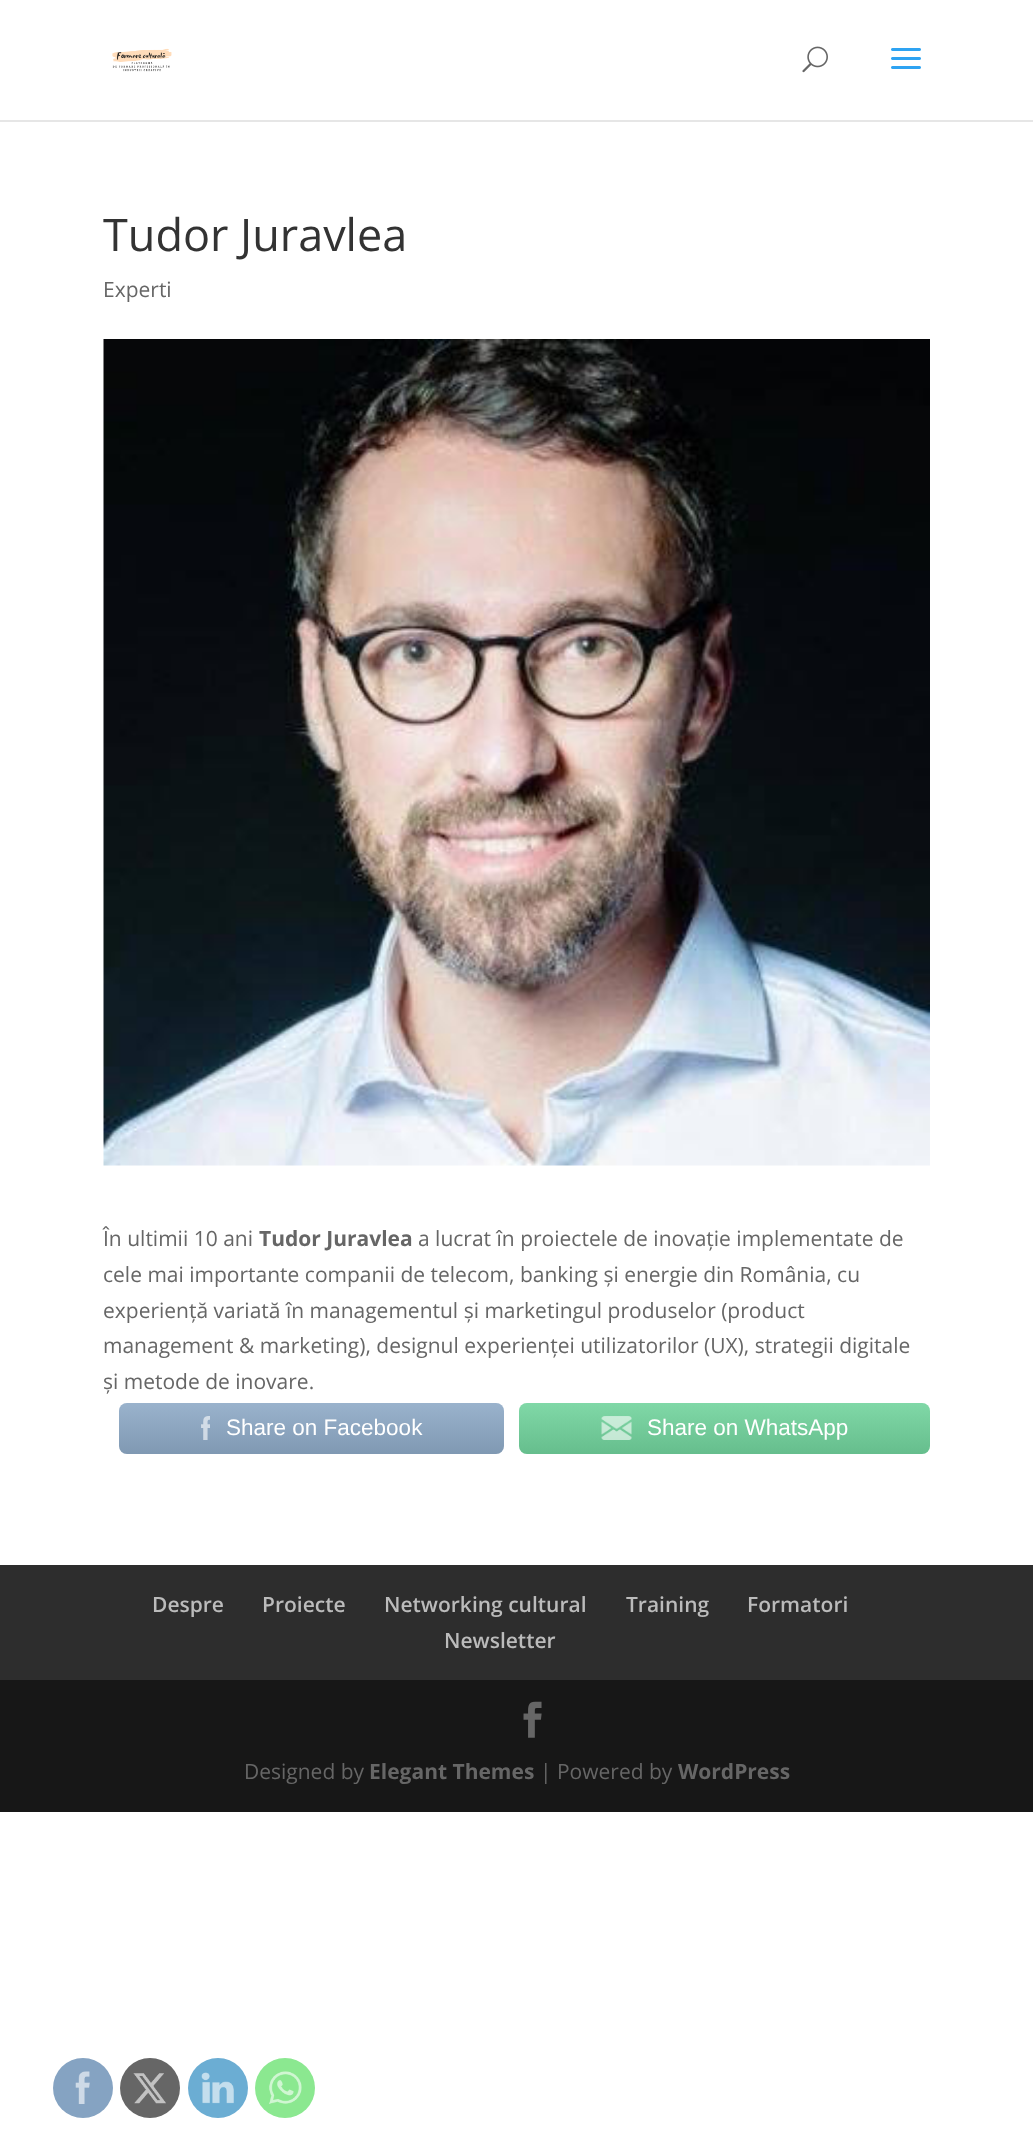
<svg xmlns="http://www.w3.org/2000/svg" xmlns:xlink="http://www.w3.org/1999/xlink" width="1033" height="2135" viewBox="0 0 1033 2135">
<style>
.cls-1{font:45px Open Sans;fill:#333333}
.cls-2{font:21px Open Sans;fill:#666666}
.cls-3{font:bold 21px Open Sans;fill:#666666}
.cls-4{font:22.5px Liberation Sans;fill:#ffffff}
.cls-5{font:600 21px Open Sans;fill:#bbbbbb}
</style>
<defs>
<linearGradient id="g1" gradientUnits="userSpaceOnUse" x1="311" y1="1454" x2="311" y2="1403"><stop offset="0" stop-color="#666666" stop-opacity="0.17"/><stop offset="1" stop-color="#ffffff" stop-opacity="0.17"/></linearGradient>
<linearGradient id="g2" gradientUnits="userSpaceOnUse" x1="725" y1="1454" x2="725" y2="1403"><stop offset="0" stop-color="#666666" stop-opacity="0.17"/><stop offset="1" stop-color="#ffffff" stop-opacity="0.17"/></linearGradient>
</defs>
<rect width="100%" height="100%" fill="#ffffff"/>
<path fill="#e6e6e6" d="M0 120V122H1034V2V120Z"/>
<image xlink:href="image0.png" x="112" y="48" width="60" height="24"/>
<image xlink:href="image1.png" x="802" y="46" width="26" height="27"/>
<image xlink:href="image2.png" x="891" y="48" width="30" height="21"/>
<image xlink:href="image3.png" x="103" y="339" width="827" height="827"/>
<rect fill="#85a3c2" x="119" y="1403" width="385" height="51" rx="8"/>
<rect fill="url(#g1)" x="119" y="1403" width="385" height="51" rx="8"/>
<image xlink:href="image4.png" x="201" y="1416" width="9" height="24"/>
<rect fill="#66d095" x="519" y="1403" width="411" height="51" rx="8"/>
<rect fill="url(#g2)" x="519" y="1403" width="411" height="51" rx="8"/>
<image xlink:href="image5.png" x="601" y="1416" width="31" height="24"/>
<rect fill="#2d2d2d" x="0" y="1565" width="1033" height="115"/>
<rect fill="#171717" x="0" y="1680" width="1033" height="132"/>
<image xlink:href="image6.png" x="523" y="1701" width="19" height="37"/>
<circle fill="#85a3c2" cx="83" cy="2088" r="30"/>
<image xlink:href="image7.png" x="75" y="2071" width="15" height="33"/>
<circle fill="#666666" cx="150" cy="2088" r="30"/>
<image xlink:href="image8.png" x="133" y="2073" width="33" height="31"/>
<circle fill="#6badd3" cx="218" cy="2088" r="30"/>
<image xlink:href="image9.png" x="201" y="2072" width="33" height="32"/>
<circle fill="#8be890" cx="285" cy="2088" r="30"/>
<image xlink:href="image10.png" x="269" y="2071" width="33" height="33"/>
<text class="cls-1" x="103" y="251">Tudor Juravlea</text>
<text class="cls-2" x="103" y="297">Experti</text>
<text class="cls-2" x="103" y="1246">În ultimii 10 ani</text>
<text class="cls-3" x="259" y="1246">Tudor Juravlea</text>
<text class="cls-2" x="418" y="1246">a lucrat în proiectele de inovație implementate de</text>
<text class="cls-2"><tspan x="103" y="1282">cele mai importante companii de telecom, banking și energie din România, cu</tspan><tspan x="103" y="1318">experiență variată în managementul și marketingul produselor (product</tspan><tspan x="103" y="1353">management &amp; marketing), designul experienței utilizatorilor (UX), strategii digitale</tspan><tspan x="103" y="1389">și metode de inovare.</tspan></text>
<text class="cls-4" x="226" y="1435">Share on Facebook</text>
<text class="cls-4" x="647" y="1435">Share on WhatsApp</text>
<text class="cls-5" x="152" y="1612">Despre</text>
<text class="cls-5" x="262" y="1612">Proiecte</text>
<text class="cls-5" x="384" y="1612">Networking cultural</text>
<text class="cls-5" x="626" y="1612">Training</text>
<text class="cls-5" x="747" y="1612">Formatori</text>
<text class="cls-5" x="444" y="1648">Newsletter</text>
<text class="cls-2" x="244" y="1779">Designed by</text>
<text class="cls-3" x="369" y="1779">Elegant Themes</text>
<text class="cls-2" x="540" y="1779">| Powered by</text>
<text class="cls-3" x="678" y="1779">WordPress</text>
</svg>
